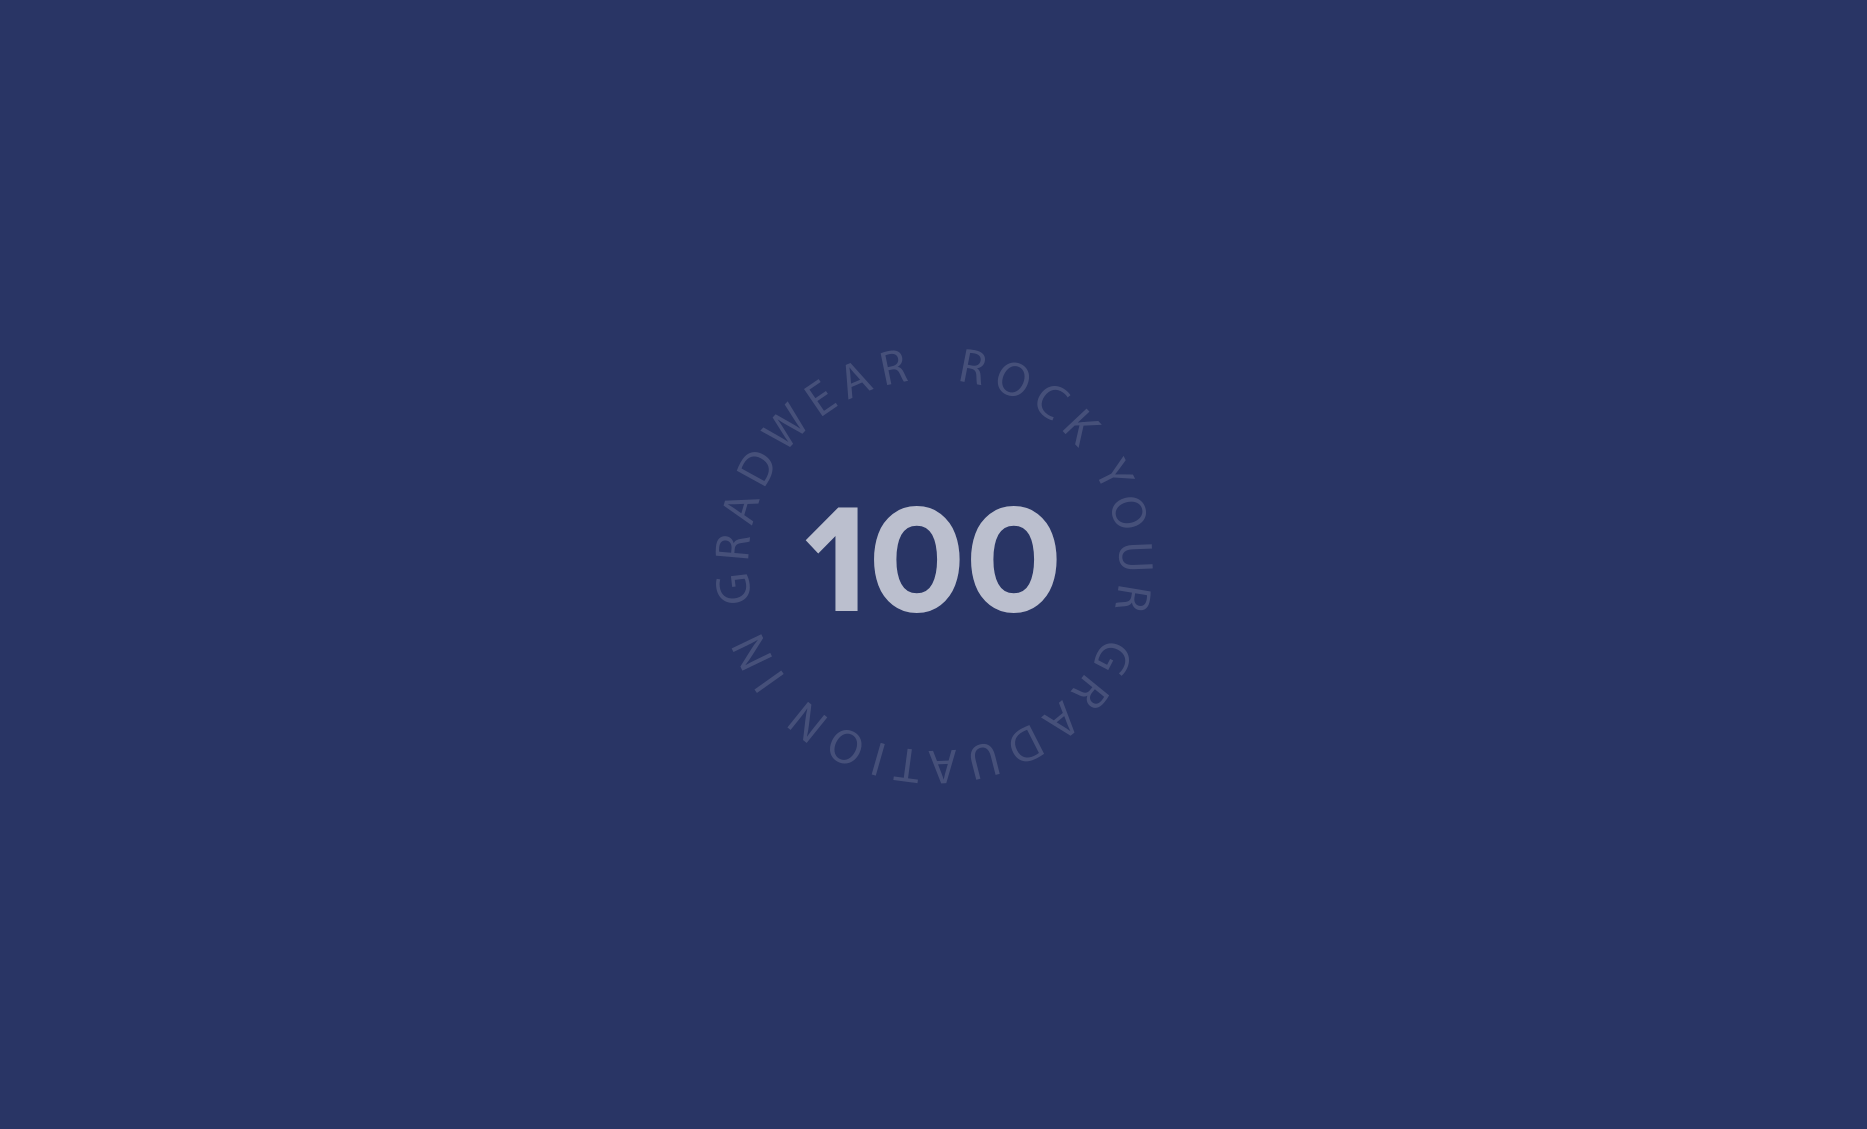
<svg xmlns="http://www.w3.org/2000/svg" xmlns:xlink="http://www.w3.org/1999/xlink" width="1867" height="1129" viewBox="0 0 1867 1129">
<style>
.cls-1{font:bold 155px Proxima Nova;letter-spacing:1px;fill:#bbbfce}
</style>
<rect width="100%" height="100%" fill="#293565"/>
<image xlink:href="image0.png" x="715" y="349" width="438" height="435"/>
<text class="cls-1" x="804" y="611">100</text>
</svg>
